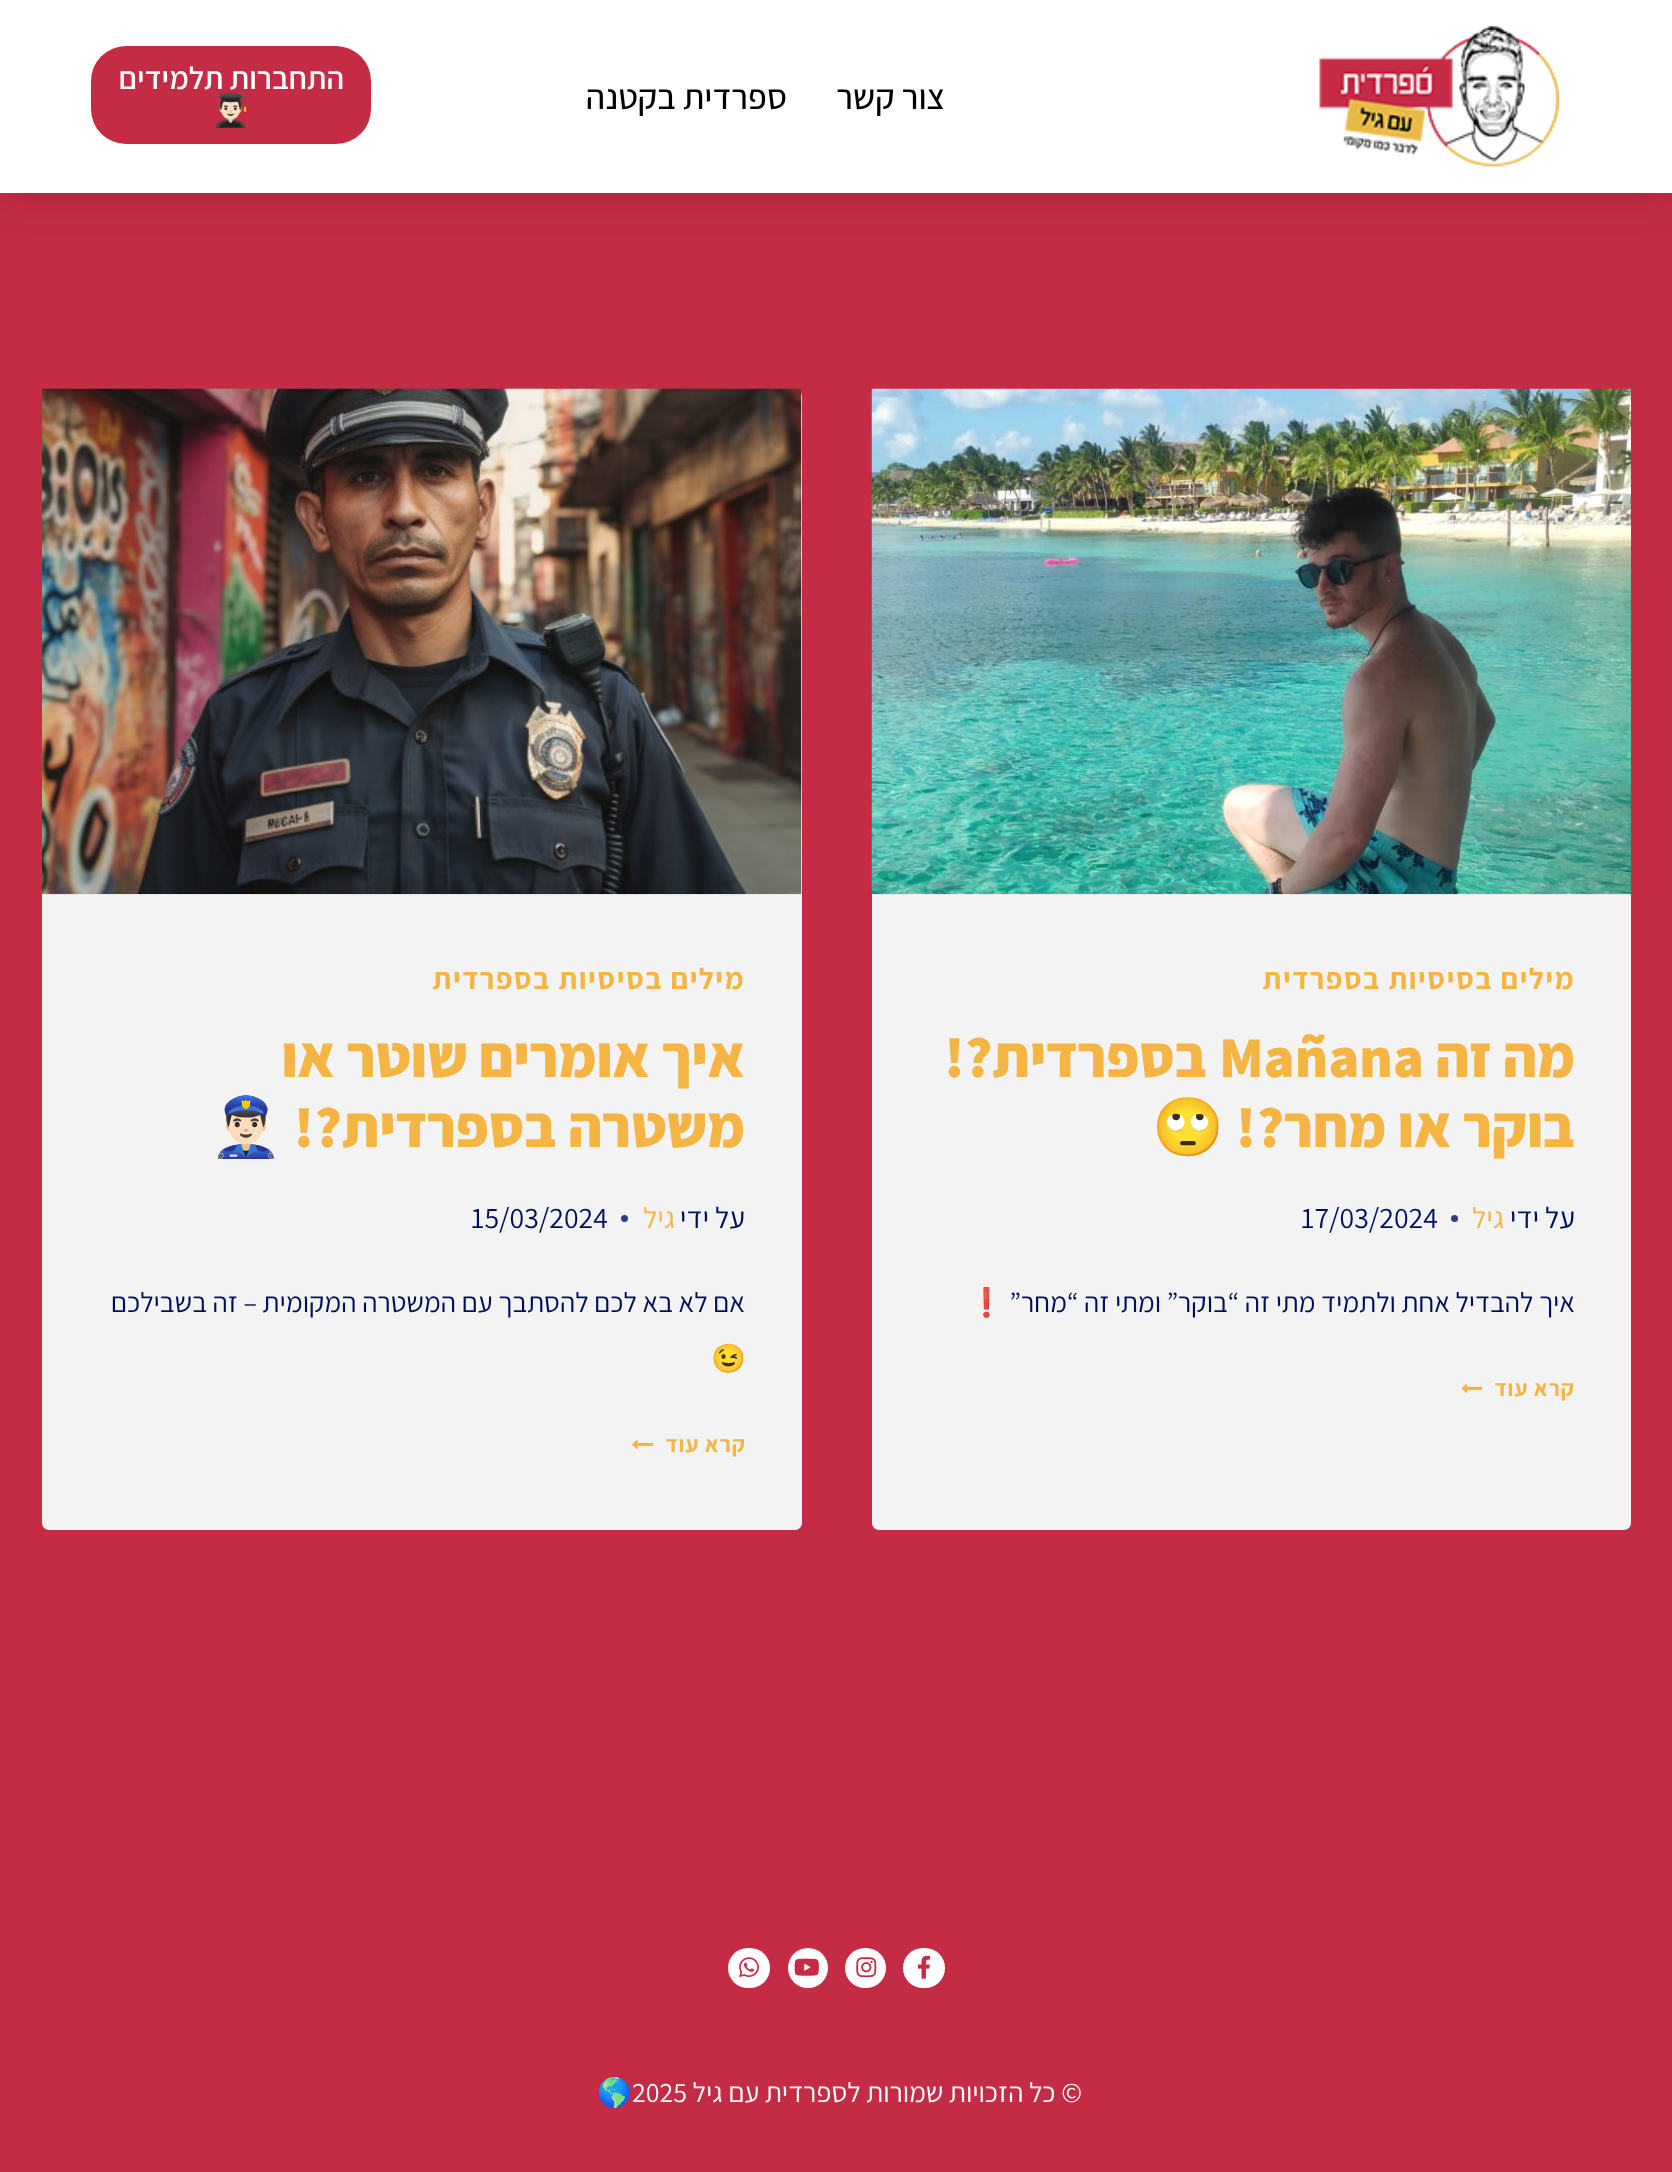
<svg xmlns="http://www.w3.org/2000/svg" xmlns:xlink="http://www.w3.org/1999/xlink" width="1672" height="2172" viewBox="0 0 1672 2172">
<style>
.cls-1{font:500 35px Assistant;direction:rtl;fill:#000000}
.cls-2{font:600 31.5px Assistant;direction:rtl;fill:#ffffff}
.cls-3{font:bold 31.5px Noto Color Emoji;fill:#ffffff}
.cls-4{font:bold 29.75px Assistant;letter-spacing:1.5px;direction:rtl;fill:#f5b545}
.cls-5{font:800 57.75px Assistant;direction:rtl;fill:#f5b545}
.cls-6{font:800 57.75px Assistant;fill:#f5b545}
.cls-7{font:bold 57.75px Noto Color Emoji;direction:rtl;fill:#f5b545}
.cls-8{font:29.75px Assistant;direction:rtl;fill:#000f5c}
.cls-9{font:29.75px Assistant;direction:rtl;fill:#f5b545}
.cls-10{font:29.75px Assistant;fill:#000f5c}
.cls-11{font:28px Assistant;direction:rtl;fill:#000f5c}
.cls-12{font:28px Noto Color Emoji;direction:rtl;fill:#000f5c}
.cls-13{font:bold 22.5px Assistant;letter-spacing:1px;direction:rtl;fill:#f5b545}
.cls-14{font:28px Noto Color Emoji;fill:#000f5c}
.cls-15{font:28px Assistant;direction:rtl;fill:#ffffff}
.cls-16{font:28px Assistant;fill:#ffffff}
.cls-17{font:28px Noto Color Emoji;fill:#ffffff}
</style>
<rect width="100%" height="100%" fill="#c42c46"/>
<rect fill="#000000" fill-opacity="0.15" filter="blur(21px)" x="0" y="0" width="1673" height="193"/>
<rect fill="#ffffff" x="0" y="0" width="1672" height="193"/>
<image xlink:href="image0.png" x="1319" y="26" width="241" height="141"/>
<rect fill="#c42c46" x="91" y="46" width="280" height="98" rx="35"/>
<rect fill="#f4f3f3" x="872" y="389" width="759" height="1141" rx="7"/>
<image xlink:href="image1.png" x="871" y="388" width="760" height="507"/>
<circle fill="#313d7a" cx="1454.5" cy="1218.5" r="3.5"/>
<image xlink:href="image2.png" x="1461" y="1383" width="21" height="11"/>
<rect fill="#f4f3f3" x="42" y="389" width="760" height="1141" rx="7"/>
<image xlink:href="image3.png" x="42" y="388" width="760" height="507"/>
<circle fill="#313d7a" cx="624.5" cy="1218.5" r="3.5"/>
<image xlink:href="image4.png" x="632" y="1439" width="21" height="11"/>
<rect fill="#ffffff" x="903" y="1948" width="42" height="40" rx="20"/>
<image xlink:href="image5.png" x="917" y="1955" width="14" height="24"/>
<rect fill="#ffffff" x="845" y="1948" width="41" height="40" rx="20"/>
<image xlink:href="image6.png" x="856" y="1957" width="21" height="21"/>
<circle fill="#ffffff" cx="808" cy="1968" r="20"/>
<image xlink:href="image7.png" x="794" y="1958" width="25" height="18"/>
<rect fill="#ffffff" x="728" y="1948" width="42" height="40" rx="20"/>
<image xlink:href="image8.png" x="739" y="1957" width="20" height="21"/>
<text class="cls-1" x="945" y="109">צור קשר</text>
<text class="cls-1" x="787" y="109">ספרדית בקטנה</text>
<text class="cls-2" x="344" y="89">התחברות תלמידים</text>
<text class="cls-3" x="211" y="121">👨🏻‍🎓</text>
<text class="cls-4" x="1575" y="989">מילים בסיסיות בספרדית</text>
<text class="cls-5" x="1575" y="1077">מה זה</text>
<text class="cls-6" x="1219" y="1077">Mañana</text>
<text class="cls-5" x="1207" y="1077">בספרדית?!</text>
<text class="cls-5" x="1575" y="1147">בוקר או מחר?!</text>
<text class="cls-7" x="1224" y="1147">🙄</text>
<text class="cls-8" x="1575" y="1228">על ידי</text>
<text class="cls-9" x="1504" y="1228">גיל</text>
<text class="cls-10" x="1301" y="1228">17/03/2024</text>
<text class="cls-11" x="1575" y="1312">איך להבדיל אחת ולתמיד מתי זה “בוקר” ומתי זה “מחר”</text>
<text class="cls-12" x="1004" y="1312">❗</text>
<text class="cls-13" x="1575" y="1396">קרא עוד</text>
<text class="cls-4" x="745" y="989">מילים בסיסיות בספרדית</text>
<text class="cls-5"><tspan x="745" y="1077">איך אומרים שוטר או</tspan><tspan x="745" y="1147">משטרה בספרדית?!</tspan></text>
<text class="cls-7" x="282" y="1147">👮🏻‍♂️</text>
<text class="cls-8" x="745" y="1228">על ידי</text>
<text class="cls-9" x="675" y="1228">גיל</text>
<text class="cls-10" x="471" y="1228">15/03/2024</text>
<text class="cls-11" x="745" y="1312">אם לא בא לכם להסתבך עם המשטרה המקומית – זה בשבילכם</text>
<text class="cls-14" x="711" y="1368">😉</text>
<text class="cls-13" x="746" y="1452">קרא עוד</text>
<text class="cls-15" x="1082" y="2102">© כל הזכויות שמורות לספרדית עם גיל</text>
<text class="cls-16" x="632" y="2102">2025</text>
<text class="cls-17" x="597" y="2102">🌎</text>
</svg>
